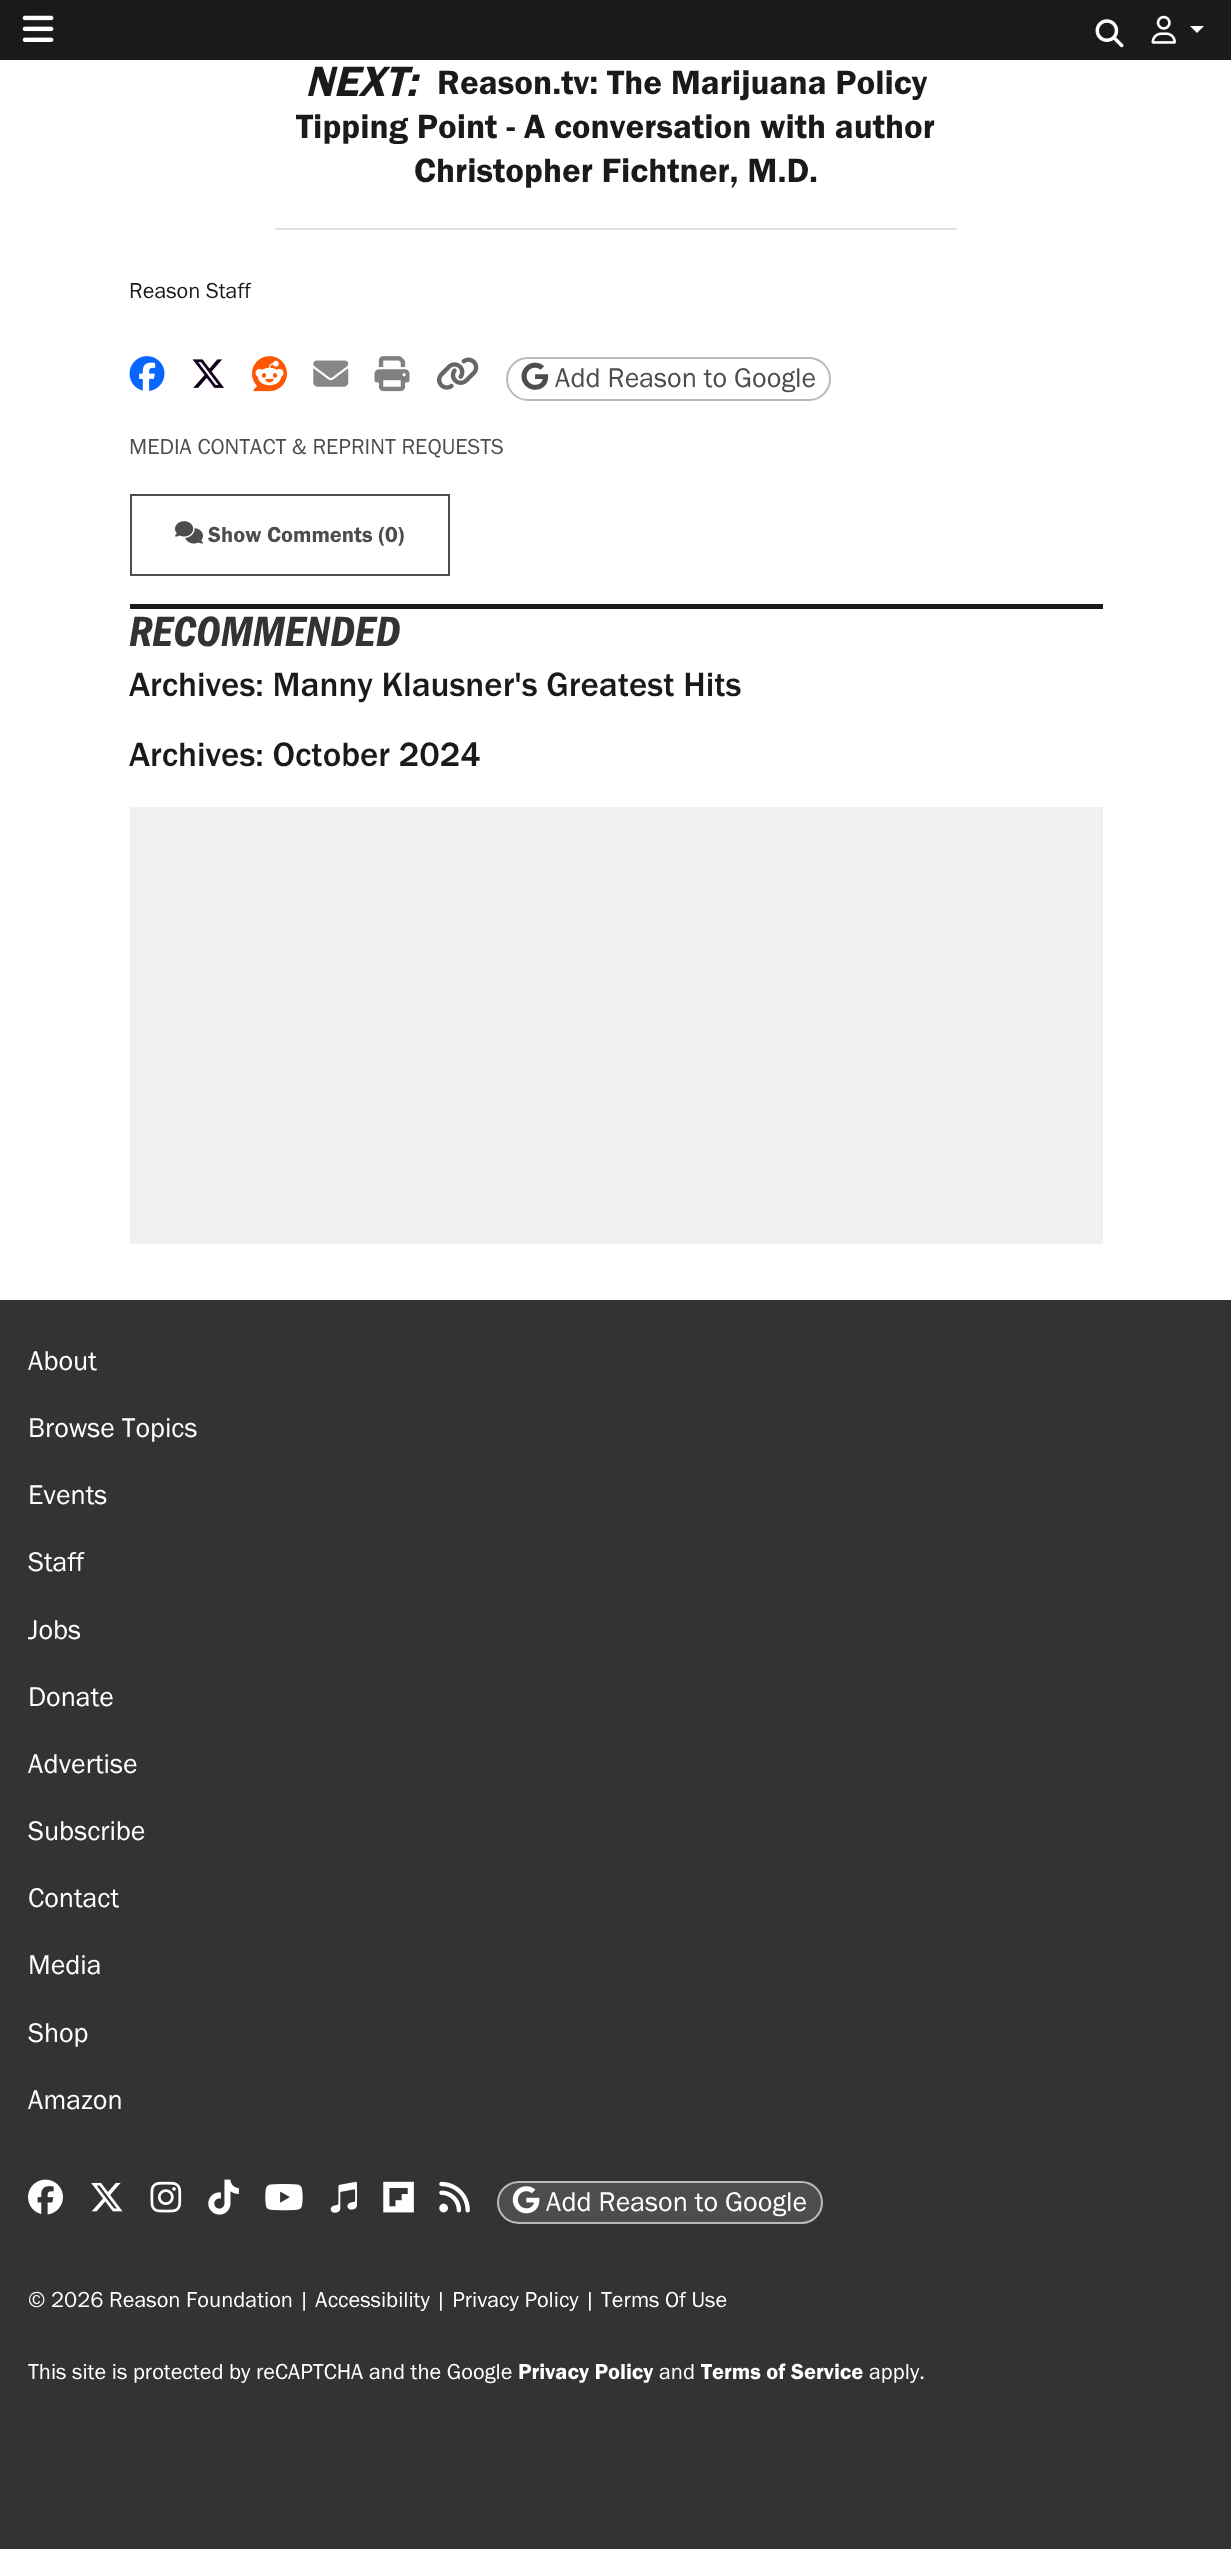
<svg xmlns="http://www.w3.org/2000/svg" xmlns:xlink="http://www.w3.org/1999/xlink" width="1231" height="2549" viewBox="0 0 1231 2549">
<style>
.cls-1{font:italic 43.75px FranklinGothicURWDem;fill:#1a1a1a}
.cls-2{font:35px FranklinGothicURWDem;fill:#1a1a1a}
.cls-3{font:22.4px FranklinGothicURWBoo;fill:#1a1a1a}
.cls-4{font:28px FranklinGothicURWBoo;fill:#4d4d4d}
.cls-5{font:22.4px FranklinGothicURWBoo;fill:#4d4d4d}
.cls-6{font:22.4px FranklinGothicURWDem;fill:#4d4d4d}
.cls-7{font:italic 43.75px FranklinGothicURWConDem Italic;fill:#333333}
.cls-8{font:35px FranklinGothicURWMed;fill:#1a1a1a}
.cls-9{font:28px FranklinGothicURWBoo;fill:#ffffff}
.cls-10{font:22.4px FranklinGothicURWBoo;fill:#ffffff}
.cls-11{font:22.4px FranklinGothicURWDem;fill:#ffffff}
</style>
<rect width="100%" height="100%" fill="#ffffff"/>
<rect fill="#1a1a1a" x="0" y="0" width="1231" height="60"/>
<image xlink:href="image0.png" x="22" y="15" width="32" height="27"/>
<image xlink:href="image1.png" x="1095" y="19" width="29" height="29"/>
<image xlink:href="image2.png" x="1151" y="15" width="25" height="29"/>
<path fill="#ffffff" d="M1190 26H1204L1197 33Z"/>
<rect fill="#e0e0e0" x="275" y="228" width="682" height="2"/>
<image xlink:href="image3.png" x="129" y="356" width="36" height="35"/>
<image xlink:href="image4.png" x="192" y="359" width="32" height="29"/>
<image xlink:href="image5.png" x="252" y="356" width="35" height="36"/>
<image xlink:href="image6.png" x="313" y="360" width="36" height="27"/>
<image xlink:href="image7.png" x="374" y="356" width="36" height="36"/>
<image xlink:href="image8.png" x="437" y="357" width="42" height="33"/>
<rect fill="none" stroke="#bababa" stroke-width="2" x="507" y="358" width="323" height="42" rx="21"/>
<image xlink:href="image9.png" x="521" y="362" width="28" height="28"/>
<rect fill="none" stroke="#4d4d4d" stroke-width="2" x="131" y="495" width="318" height="80"/>
<image xlink:href="image10.png" x="175" y="521" width="28" height="23"/>
<rect fill="#1a1a1a" x="130" y="604" width="973" height="5"/>
<rect fill="#f0f0f0" x="130" y="807" width="973" height="437"/>
<rect fill="#333333" x="0" y="1300" width="1231" height="1249"/>
<image xlink:href="image11.png" x="28" y="2179" width="35" height="36"/>
<image xlink:href="image12.png" x="91" y="2182" width="32" height="30"/>
<image xlink:href="image13.png" x="150" y="2181" width="32" height="32"/>
<image xlink:href="image14.png" x="208" y="2179" width="31" height="36"/>
<image xlink:href="image15.png" x="265" y="2184" width="38" height="27"/>
<image xlink:href="image16.png" x="330" y="2181" width="27" height="32"/>
<image xlink:href="image17.png" x="383" y="2181" width="31" height="32"/>
<image xlink:href="image18.png" x="439" y="2181" width="31" height="32"/>
<rect fill="#4d4d4d" stroke="#bababa" stroke-width="2" x="498" y="2182" width="324" height="41" rx="20.5"/>
<image xlink:href="image19.png" x="512" y="2186" width="28" height="28"/>
<text class="cls-1" x="305" y="96">NEXT:</text>
<text class="cls-2" x="437" y="94">Reason.tv: The Marijuana Policy</text>
<text class="cls-2" x="296" y="138">Tipping Point - A conversation with author</text>
<text class="cls-2" x="414" y="182">Christopher Fichtner, M.D.</text>
<text class="cls-3" x="129" y="298">Reason Staff</text>
<text class="cls-4" x="555" y="387">Add Reason to Google</text>
<text class="cls-5" x="129" y="454">MEDIA CONTACT &amp; REPRINT REQUESTS</text>
<text class="cls-6" x="208" y="542">Show Comments (0)</text>
<text class="cls-7" x="129" y="646">RECOMMENDED</text>
<text class="cls-8" x="129" y="696">Archives: Manny Klausner's Greatest Hits</text>
<text class="cls-8" x="129" y="766">Archives: October 2024</text>
<text class="cls-9" x="28" y="1370">About</text>
<text class="cls-9" x="28" y="1437">Browse Topics</text>
<text class="cls-9" x="28" y="1504">Events</text>
<text class="cls-9" x="28" y="1571">Staff</text>
<text class="cls-9" x="28" y="1639">Jobs</text>
<text class="cls-9" x="28" y="1706">Donate</text>
<text class="cls-9" x="28" y="1773">Advertise</text>
<text class="cls-9" x="28" y="1840">Subscribe</text>
<text class="cls-9" x="28" y="1907">Contact</text>
<text class="cls-9" x="28" y="1974">Media</text>
<text class="cls-9" x="28" y="2042">Shop</text>
<text class="cls-9" x="28" y="2109">Amazon</text>
<text class="cls-9" x="546" y="2211">Add Reason to Google</text>
<text class="cls-10" x="28" y="2307">© 2026 Reason Foundation | Accessibility | Privacy Policy | Terms Of Use</text>
<text class="cls-10" x="28" y="2379">This site is protected by reCAPTCHA and the Google</text>
<text class="cls-11" x="518" y="2379">Privacy Policy</text>
<text class="cls-10" x="659" y="2379">and</text>
<text class="cls-11" x="701" y="2379">Terms of Service</text>
<text class="cls-10" x="869" y="2379">apply.</text>
</svg>
